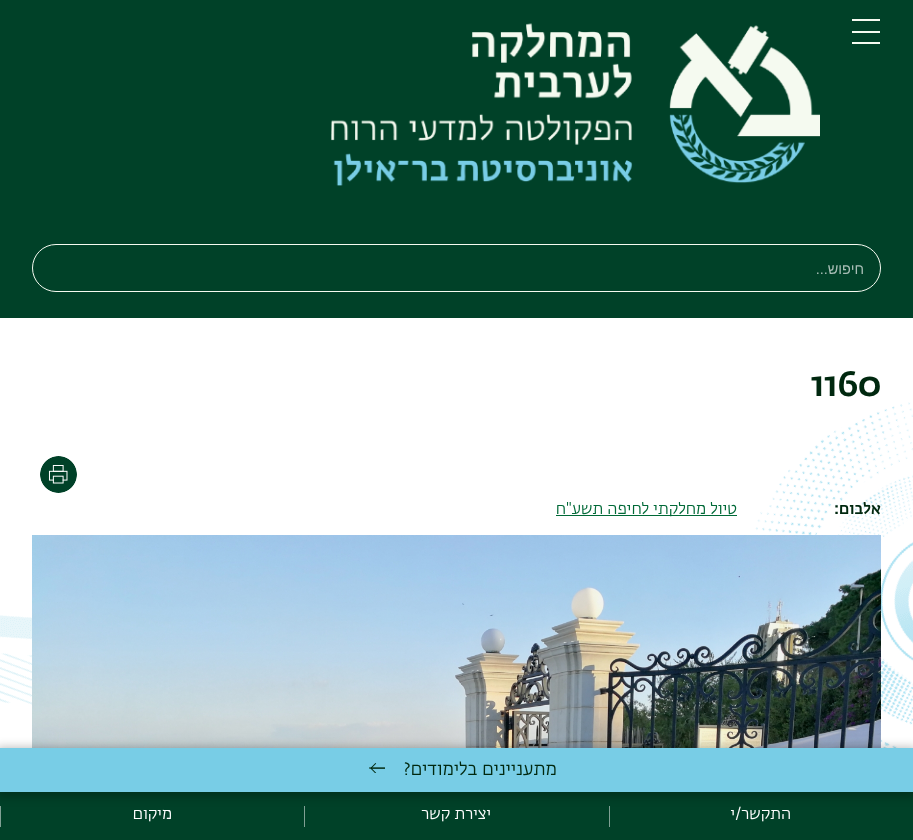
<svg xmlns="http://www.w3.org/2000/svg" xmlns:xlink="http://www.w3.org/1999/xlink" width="913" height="840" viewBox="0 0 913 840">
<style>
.cls-1{font:14.5px Liberation Sans;direction:rtl;fill:#a8beb6}
.cls-2{font:500 35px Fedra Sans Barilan;fill:#00280f}
.cls-3{font:500 16px Fedra Sans Barilan;direction:rtl;fill:#00280f}
.cls-4{font:500 16px Fedra Sans Barilan;fill:#00280f}
.cls-5{font:16px Fedra Sans Barilan;direction:rtl;fill:#006937}
.cls-6{font:18px Fedra Sans Barilan;direction:rtl;fill:#00280f}
.cls-7{font:16px Fedra Sans Barilan;direction:rtl;fill:#ffffff}
</style>
<defs>
<clipPath id="clip1"><rect x="369" y="762" width="16" height="11"/></clipPath>
</defs>
<rect width="100%" height="100%" fill="#ffffff"/>
<rect fill="#004128" x="0" y="0" width="913" height="318"/>
<rect fill="#f5faf0" x="852" y="19" width="28" height="2"/>
<rect fill="#f5faf0" x="852" y="31" width="28" height="2"/>
<rect fill="#f5faf0" x="852" y="42" width="28" height="2"/>
<image xlink:href="image0.png" x="331" y="23" width="489" height="163"/>
<rect fill="none" stroke="#f5faf0" x="32.5" y="244.5" width="848" height="47" rx="23.5"/>
<image xlink:href="image1.png" x="40" y="456" width="37" height="37"/>
<rect fill="#006937" x="556" y="515" width="181" height="1"/>
<image xlink:href="image3.png" x="755" y="402" width="158" height="346"/>
<image xlink:href="image2.png" x="32" y="535" width="849" height="213"/>
<image xlink:href="image4.png" x="0" y="615" width="32" height="90"/>
<rect fill="#004128" x="0" y="792" width="913" height="48"/>
<rect fill="#80a094" x="609" y="806" width="1" height="21"/>
<rect fill="#80a094" x="304" y="806" width="1" height="21"/>
<rect fill="#80a094" x="0" y="806" width="1" height="21"/>
<rect fill="#000000" fill-opacity="0.25" filter="blur(5px)" x="-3" y="747" width="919" height="50"/>
<rect fill="#78cde6" x="0" y="748" width="913" height="44"/>
<g clip-path="url(#clip1)">
<path fill="none" stroke="#00280f" d="M386.5 768H367"/>
</g>
<image xlink:href="image5.png" x="370" y="763" width="15" height="10"/>
<text class="cls-1" x="864" y="274">חיפוש...</text>
<text class="cls-2" x="811" y="396">1160</text>
<text class="cls-3" x="881" y="514">אלבום</text>
<text class="cls-4" x="834" y="514">:</text>
<text class="cls-5" x="737" y="514">טיול מחלקתי לחיפה תשע"ח</text>
<text class="cls-6" x="557" y="775">מתעניינים בלימודים?</text>
<text class="cls-7" x="791" y="819">התקשר/י</text>
<text class="cls-7" x="491" y="819">יצירת קשר</text>
<text class="cls-7" x="172" y="819">מיקום</text>
</svg>
